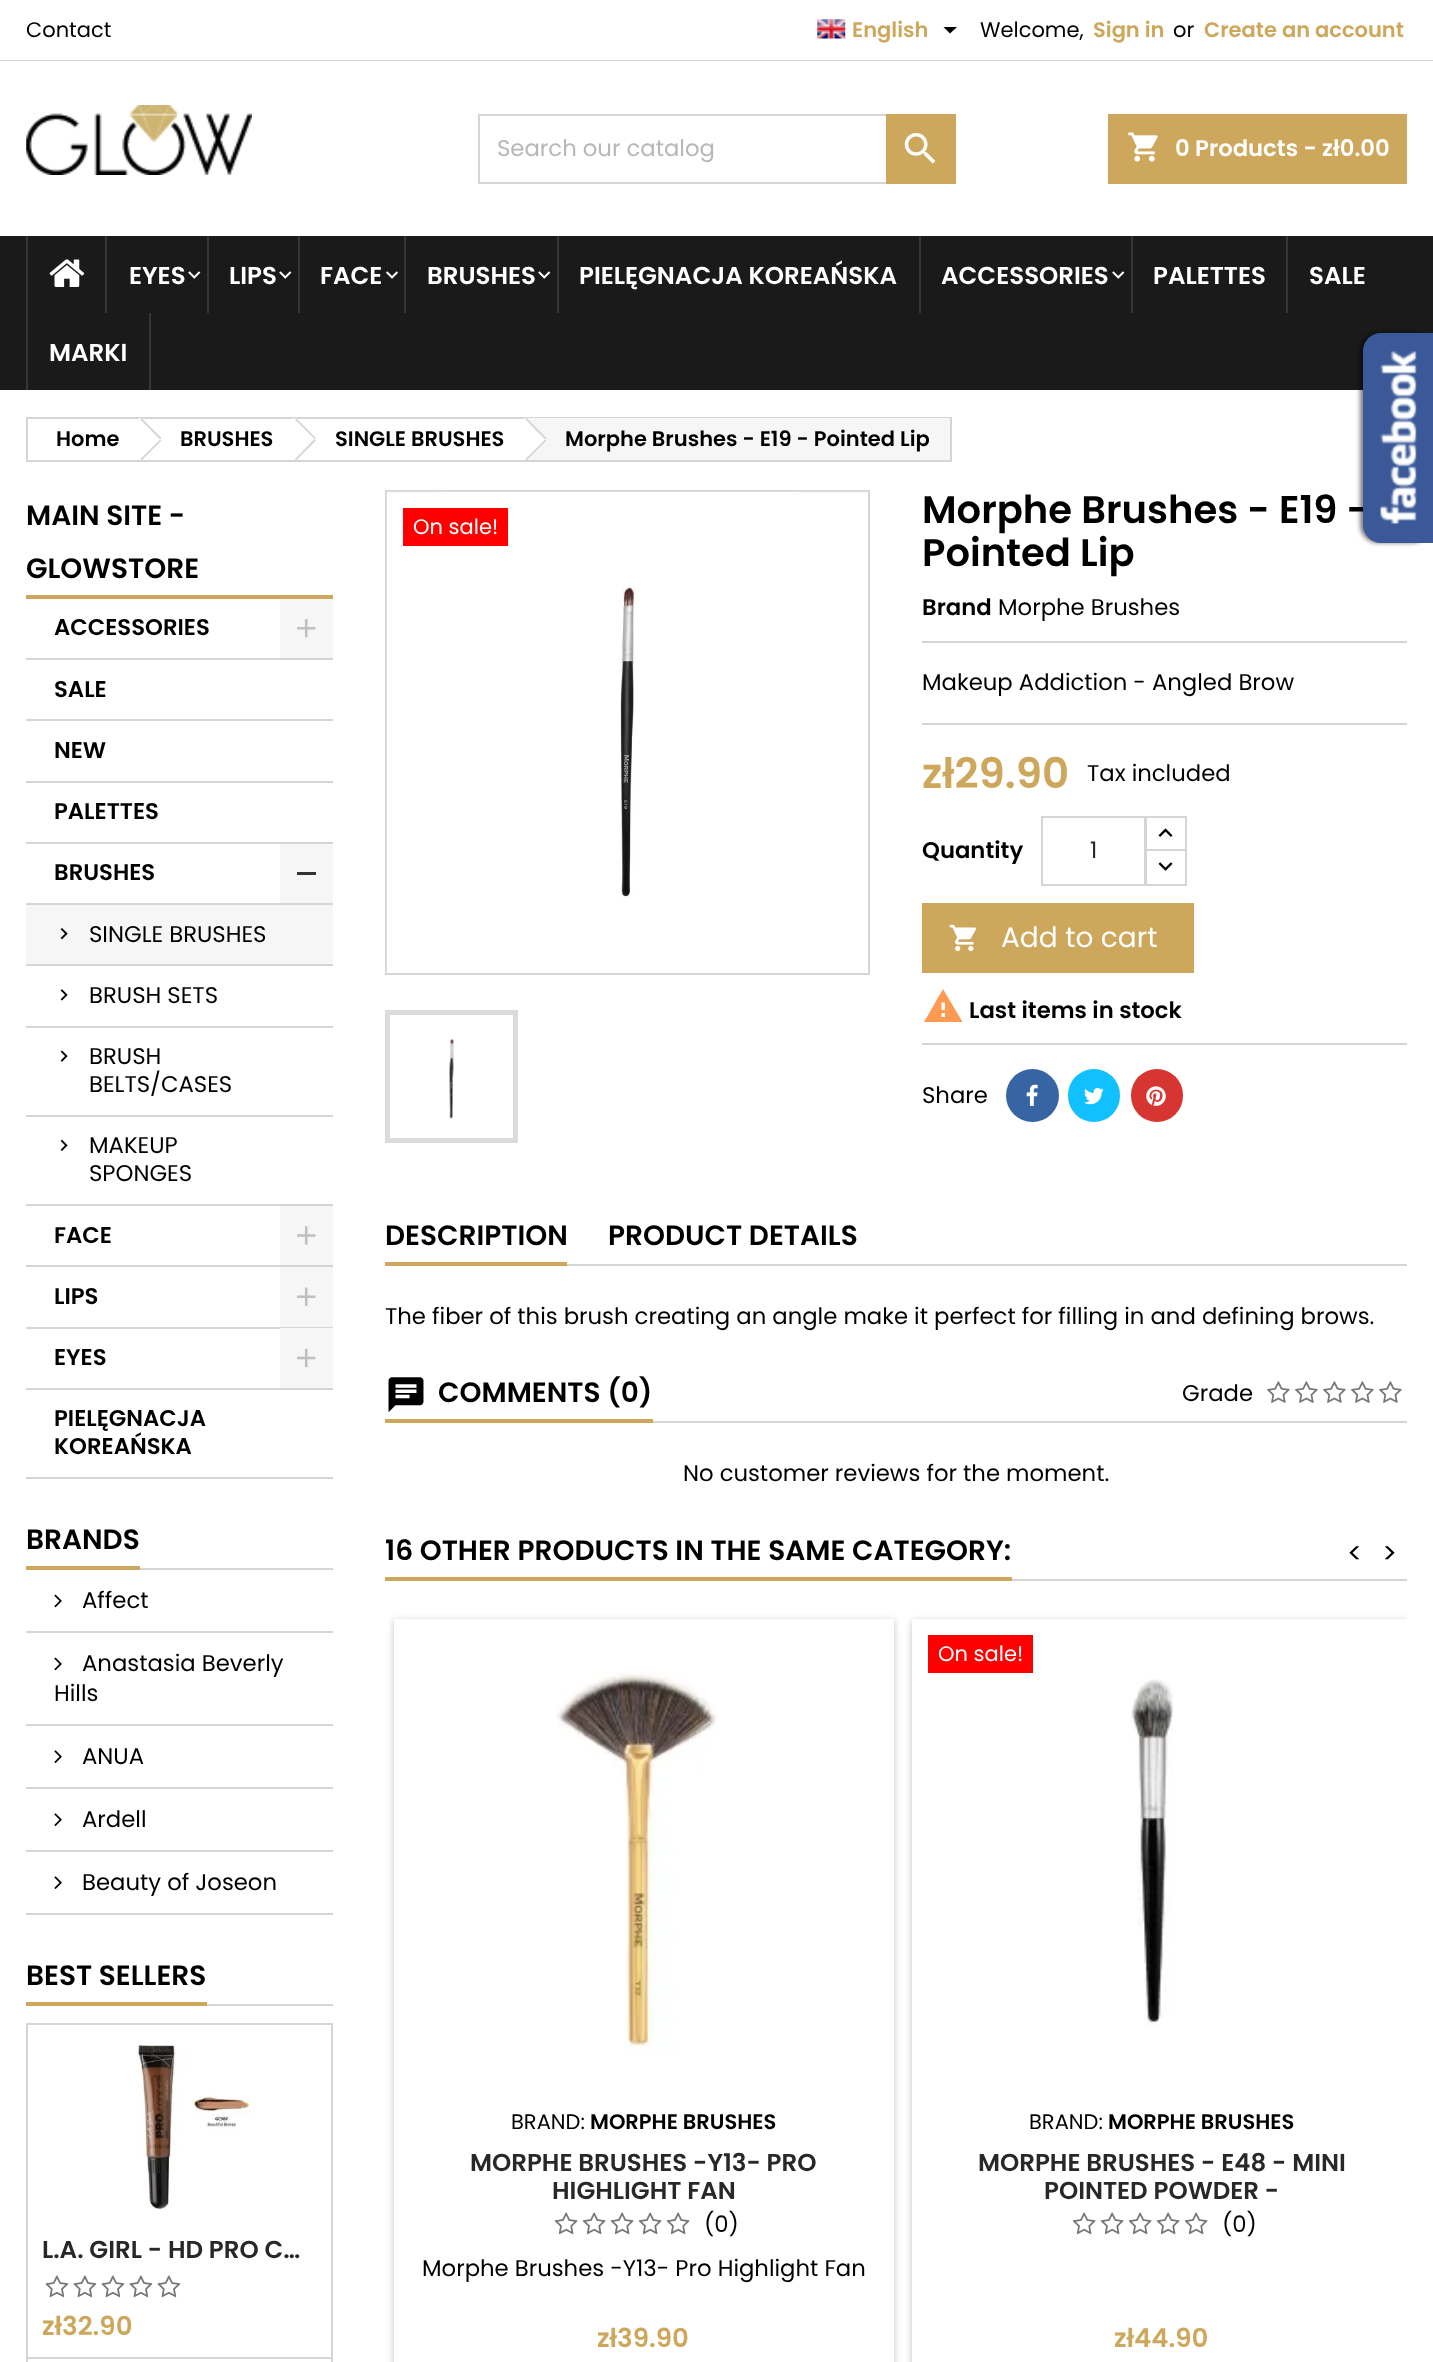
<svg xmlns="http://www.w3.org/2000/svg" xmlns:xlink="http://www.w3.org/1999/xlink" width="1433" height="2362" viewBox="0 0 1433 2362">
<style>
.cls-1{font:21px Poppins;fill:#000000}
.cls-2{font:600 21px Poppins;fill:#cda85c}
.cls-3{font:22.75px Poppins;fill:#b7b7b7}
.cls-4{font:600 22.75px Poppins;fill:#ffffff}
.cls-5{font:600 24.5px Poppins;fill:#ffffff}
.cls-6{font:600 21px Poppins;fill:#000000}
.cls-7{font:600 28px Poppins;fill:#000000}
.cls-8{font:600 22.75px Poppins;fill:#000000}
.cls-9{font:22.75px Poppins;fill:#000000}
.cls-10{font:600 24.5px Poppins;fill:#282828}
.cls-11{font:600 26px Poppins;fill:#cda85c}
.cls-12{font:21px Poppins;fill:#ffffff}
.cls-13{font:600 38.5px Poppins;fill:#000000}
.cls-14{font:600 42px Poppins;fill:#cda85c}
.cls-15{font:22.75px Poppins;fill:#282828}
.cls-16{font:28px Poppins;fill:#ffffff}
.cls-17{font:28px Poppins;fill:#000000}
</style>
<defs>
<clipPath id="clip1"><path d="M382 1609H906V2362H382ZM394 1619H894V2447H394Z" clip-rule="evenodd"/></clipPath>
<clipPath id="clip2"><rect x="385" y="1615" width="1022" height="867"/></clipPath>
<clipPath id="clip3"><path d="M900 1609H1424V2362H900ZM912 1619H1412V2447H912Z" clip-rule="evenodd"/></clipPath>
</defs>
<rect width="100%" height="100%" fill="#ffffff"/>
<rect fill="#d6d4d4" x="0" y="60" width="1433" height="1"/>
<image xlink:href="image0.png" x="817" y="19" width="29" height="20"/>
<path fill="#000000" d="M943.5 27H957L950 33.5Z"/>
<image xlink:href="image1.png" x="26" y="105" width="226" height="70"/>
<rect fill="none" stroke="#d6d4d4" stroke-width="2" x="479" y="115" width="476" height="68"/>
<rect fill="#cda85c" x="886" y="114" width="70" height="70"/>
<image xlink:href="image2.png" x="904" y="133" width="32" height="31"/>
<rect fill="#cda85c" x="1108" y="114" width="299" height="70"/>
<image xlink:href="image3.png" x="1128" y="132" width="30" height="30"/>
<rect fill="#1b1a1b" x="0" y="236" width="1433" height="154"/>
<rect fill="#363636" x="26" y="236" width="2" height="154"/>
<image xlink:href="image4.png" x="49" y="259" width="36" height="28"/>
<rect fill="#363636" x="105" y="236" width="2" height="77"/>
<image xlink:href="image5.png" x="188" y="271" width="13" height="8"/>
<rect fill="#363636" x="207" y="236" width="2" height="77"/>
<image xlink:href="image5.png" x="279" y="271" width="13" height="8"/>
<rect fill="#363636" x="298" y="236" width="2" height="77"/>
<image xlink:href="image6.png" x="386" y="271" width="12" height="8"/>
<rect fill="#363636" x="404" y="236" width="2" height="77"/>
<image xlink:href="image5.png" x="538" y="271" width="13" height="8"/>
<rect fill="#363636" x="557" y="236" width="2" height="77"/>
<rect fill="#363636" x="919" y="236" width="2" height="77"/>
<image xlink:href="image5.png" x="1112" y="271" width="13" height="8"/>
<rect fill="#363636" x="1131" y="236" width="2" height="77"/>
<rect fill="#363636" x="1286" y="236" width="2" height="77"/>
<rect fill="#363636" x="149" y="313" width="2" height="77"/>
<rect fill="#000000" fill-opacity="0.5" filter="blur(2px)" x="1360" y="333" width="70" height="210" rx="18"/>
<rect fill="none" stroke="#d6d4d4" stroke-width="2" x="27" y="418" width="924" height="43"/>
<path fill="#ffffff" d="M143 419L160 437C162 438 162 440 160 442L143 459C142 460 139 460 138 459L121 442C119 440 119 438 121 437L138 419C139 418 142 418 143 419Z"/>
<path fill="#d6d4d4" d="M141.5 418L161.5 438L160 439.5L140.5 419.5Z"/>
<path fill="#d6d4d4" d="M160 439.5L161.5 440.5L141.5 460.5L140.5 459Z"/>
<path fill="#ffffff" d="M297 419L315 437C316 438 316 440 315 442L297 459C296 460 294 460 292 459L275 442C274 440 274 438 275 437L292 419C294 418 296 418 297 419Z"/>
<path fill="#d6d4d4" d="M296 418L316 438L314.5 439L295 419.5ZM314.5 439L316 440.5L296 460.5L295 459Z"/>
<rect fill="#f6f6f6" x="527" y="418" width="423" height="42"/>
<path fill="#ffffff" d="M528 419L545 437C546 438 546 440 545 442L528 459C526 460 524 460 523 459L506 442C504 440 504 438 506 437L523 419C524 418 526 418 528 419Z"/>
<path fill="#d6d4d4" d="M526.5 418L546.5 438L545 439.5L525.5 419.5Z"/>
<path fill="#d6d4d4" d="M545 439.5L546.5 440.5L526.5 460.5L525.5 459Z"/>
<rect fill="#cda85c" x="26" y="595" width="307" height="4"/>
<rect fill="#d6d4d4" x="26" y="658" width="307" height="2"/>
<rect fill="#f6f6f6" x="280" y="599" width="53" height="59"/>
<image xlink:href="image8.png" x="297" y="619" width="19" height="19"/>
<rect fill="#d6d4d4" x="26" y="719" width="307" height="2"/>
<rect fill="#d6d4d4" x="26" y="781" width="307" height="2"/>
<rect fill="#d6d4d4" x="26" y="842" width="307" height="2"/>
<rect fill="#d6d4d4" x="26" y="903" width="307" height="2"/>
<rect fill="#f6f6f6" x="280" y="844" width="53" height="59"/>
<rect fill="#333333" x="297" y="872" width="19" height="3"/>
<rect fill="#f6f6f6" x="26" y="905" width="307" height="59"/>
<rect fill="#d6d4d4" x="26" y="964" width="307" height="2"/>
<image xlink:href="image9.png" x="60" y="928" width="8" height="12"/>
<rect fill="#d6d4d4" x="26" y="1026" width="307" height="2"/>
<image xlink:href="image10.png" x="60" y="989" width="8" height="12"/>
<rect fill="#d6d4d4" x="26" y="1115" width="307" height="2"/>
<image xlink:href="image11.png" x="60" y="1050" width="8" height="12"/>
<rect fill="#d6d4d4" x="26" y="1204" width="307" height="2"/>
<image xlink:href="image12.png" x="60" y="1139" width="8" height="12"/>
<rect fill="#d6d4d4" x="26" y="1265" width="307" height="2"/>
<rect fill="#f6f6f6" x="280" y="1206" width="53" height="59"/>
<image xlink:href="image13.png" x="297" y="1226" width="19" height="19"/>
<rect fill="#d6d4d4" x="26" y="1327" width="307" height="2"/>
<rect fill="#f6f6f6" x="280" y="1267" width="53" height="60"/>
<image xlink:href="image14.png" x="297" y="1287" width="19" height="19"/>
<rect fill="#d6d4d4" x="26" y="1388" width="307" height="2"/>
<rect fill="#f6f6f6" x="280" y="1328" width="53" height="60"/>
<image xlink:href="image15.png" x="297" y="1348" width="19" height="20"/>
<rect fill="#d6d4d4" x="26" y="1477" width="307" height="2"/>
<rect fill="#d6d4d4" x="140" y="1568" width="193" height="2"/>
<rect fill="#cda85c" x="26" y="1566" width="114" height="4"/>
<rect fill="#d6d4d4" x="26" y="1631" width="307" height="2"/>
<image xlink:href="image16.png" x="54" y="1594" width="8" height="14"/>
<rect fill="#d6d4d4" x="26" y="1724" width="307" height="2"/>
<image xlink:href="image16.png" x="54" y="1657" width="8" height="14"/>
<rect fill="#d6d4d4" x="26" y="1787" width="307" height="2"/>
<image xlink:href="image17.png" x="54" y="1750" width="8" height="13"/>
<rect fill="#d6d4d4" x="26" y="1850" width="307" height="2"/>
<image xlink:href="image17.png" x="54" y="1813" width="8" height="13"/>
<rect fill="#d6d4d4" x="26" y="1913" width="307" height="2"/>
<image xlink:href="image17.png" x="54" y="1876" width="8" height="13"/>
<rect fill="#d6d4d4" x="207" y="2004" width="126" height="2"/>
<rect fill="#cda85c" x="26" y="2002" width="181" height="4"/>
<rect fill="none" stroke="#d6d4d4" stroke-width="2" x="27" y="2024" width="305" height="334"/>
<image xlink:href="image18.png" x="137" y="2044" width="113" height="167"/>
<image xlink:href="image19.png" x="45" y="2275" width="24" height="23"/>
<image xlink:href="image19.png" x="73" y="2275" width="24" height="23"/>
<image xlink:href="image19.png" x="101" y="2275" width="24" height="23"/>
<image xlink:href="image19.png" x="129" y="2275" width="24" height="23"/>
<image xlink:href="image19.png" x="157" y="2275" width="24" height="23"/>
<rect fill="#d6d4d4" x="331" y="2359" width="2" height="3"/>
<rect fill="#d6d4d4" x="26" y="2359" width="2" height="3"/>
<rect fill="none" stroke="#d6d4d4" stroke-width="2" x="386" y="491" width="483" height="483"/>
<image xlink:href="image20.png" x="386" y="491" width="482" height="482"/>
<rect fill="none" stroke="#dbdbdb" stroke-width="5" x="387.5" y="1012.5" width="128" height="128"/>
<image xlink:href="image21.png" x="449" y="1038" width="5" height="81"/>
<rect fill="#ff0000" x="403" y="508" width="105" height="38"/>
<rect fill="#d6d4d4" x="922" y="641" width="485" height="2"/>
<rect fill="#d6d4d4" x="922" y="723" width="485" height="2"/>
<rect fill="none" stroke="#d6d4d4" stroke-width="2" x="1146" y="817" width="40" height="34"/>
<rect fill="#ffffff" x="1147" y="851" width="38" height="1"/>
<rect fill="none" stroke="#d6d4d4" stroke-width="2" x="1146" y="850" width="40" height="35"/>
<rect fill="none" stroke="#d6d4d4" stroke-width="2" x="1042" y="817" width="103" height="68"/>
<image xlink:href="image22.png" x="1158" y="828" width="15" height="9"/>
<image xlink:href="image23.png" x="1158" y="862" width="15" height="9"/>
<rect fill="#cda85c" x="922" y="903" width="272" height="70"/>
<image xlink:href="image24.png" x="949" y="924" width="27" height="28"/>
<path fill="#ff9a52" d="M945 1010V1002.5H941.5V1010ZM945 1017V1013H941.5V1017ZM924 1022L943 989L962.5 1022Z"/>
<rect fill="#d6d4d4" x="922" y="1043" width="485" height="2"/>
<circle fill="#3765a3" cx="1032.5" cy="1095.5" r="26.5"/>
<image xlink:href="image25.png" x="1026" y="1084" width="12" height="22"/>
<rect fill="#11c1ff" x="1068" y="1069" width="52" height="53" rx="26"/>
<image xlink:href="image26.png" x="1084" y="1088" width="20" height="17"/>
<rect fill="#d73532" x="1131" y="1069" width="52" height="53" rx="26"/>
<image xlink:href="image27.png" x="1146" y="1086" width="20" height="20"/>
<rect fill="#d6d4d4" x="567" y="1264" width="840" height="2"/>
<rect fill="#cda85c" x="385" y="1262" width="182" height="4"/>
<rect fill="#d6d4d4" x="653" y="1421" width="754" height="2"/>
<rect fill="#cda85c" x="385" y="1419" width="268" height="4"/>
<image xlink:href="image28.png" x="388" y="1377" width="36" height="36"/>
<image xlink:href="image29.png" x="1267" y="1381" width="23" height="22"/>
<image xlink:href="image29.png" x="1295" y="1381" width="23" height="22"/>
<image xlink:href="image29.png" x="1323" y="1381" width="23" height="22"/>
<image xlink:href="image29.png" x="1351" y="1381" width="23" height="22"/>
<image xlink:href="image29.png" x="1379" y="1381" width="23" height="22"/>
<rect fill="#d6d4d4" x="1012" y="1579" width="395" height="2"/>
<rect fill="#cda85c" x="385" y="1577" width="627" height="4"/>
<g clip-path="url(#clip1)">
<rect fill="#000000" fill-opacity="0.24" filter="blur(3.5px)" x="394" y="1621" width="500" height="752"/>
</g>
<image xlink:href="image30.png" x="556" y="1672" width="161" height="382"/>
<image xlink:href="image31.png" x="554" y="2212" width="24" height="23"/>
<image xlink:href="image31.png" x="582" y="2212" width="24" height="23"/>
<image xlink:href="image31.png" x="610" y="2212" width="24" height="23"/>
<image xlink:href="image31.png" x="638" y="2212" width="24" height="23"/>
<image xlink:href="image31.png" x="666" y="2212" width="24" height="23"/>
<g clip-path="url(#clip2)">
<g clip-path="url(#clip3)">
<rect fill="#000000" fill-opacity="0.24" filter="blur(3.5px)" x="912" y="1621" width="500" height="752"/>
</g>
</g>
<rect fill="#ff0000" x="928" y="1635" width="105" height="38"/>
<image xlink:href="image32.png" x="1130" y="1679" width="44" height="347"/>
<image xlink:href="image31.png" x="1072" y="2212" width="24" height="23"/>
<image xlink:href="image31.png" x="1100" y="2212" width="24" height="23"/>
<image xlink:href="image31.png" x="1128" y="2212" width="24" height="23"/>
<image xlink:href="image31.png" x="1156" y="2212" width="24" height="23"/>
<image xlink:href="image31.png" x="1184" y="2212" width="24" height="23"/>
<text class="cls-1" x="26" y="37">Contact</text>
<text class="cls-2" x="852" y="37">English</text>
<text class="cls-1" x="980" y="37">Welcome,</text>
<text class="cls-2" x="1093" y="37">Sign in</text>
<text class="cls-1" x="1173" y="37">or</text>
<text class="cls-2" x="1204" y="37">Create an account</text>
<text class="cls-3" x="497" y="156">Search our catalog</text>
<text class="cls-4" x="1175" y="156">0 Products - zł0.00</text>
<text class="cls-5" x="129" y="284">EYES</text>
<text class="cls-5" x="229" y="284">LIPS</text>
<text class="cls-5" x="320" y="284">FACE</text>
<text class="cls-5" x="427" y="284">BRUSHES</text>
<text class="cls-5" x="579" y="284">PIELĘGNACJA KOREAŃSKA</text>
<text class="cls-5" x="941" y="284">ACCESSORIES</text>
<text class="cls-5" x="1153" y="284">PALETTES</text>
<text class="cls-5" x="1309" y="284">SALE</text>
<text class="cls-5" x="49" y="361">MARKI</text>
<text class="cls-6" x="56" y="446">Home</text>
<text class="cls-6" x="180" y="446">BRUSHES</text>
<text class="cls-6" x="335" y="446">SINGLE BRUSHES</text>
<text class="cls-6" x="565" y="446">Morphe Brushes - E19 - Pointed Lip</text>
<text class="cls-7"><tspan x="26" y="525">MAIN SITE -</tspan><tspan x="26" y="578">GLOWSTORE</tspan></text>
<text class="cls-8" x="54" y="635">ACCESSORIES</text>
<text class="cls-8" x="54" y="697">SALE</text>
<text class="cls-8" x="54" y="758">NEW</text>
<text class="cls-8" x="54" y="819">PALETTES</text>
<text class="cls-8" x="54" y="880">BRUSHES</text>
<text class="cls-9" x="89" y="942">SINGLE BRUSHES</text>
<text class="cls-9" x="89" y="1003">BRUSH SETS</text>
<text class="cls-9"><tspan x="89" y="1064">BRUSH</tspan><tspan x="89" y="1092">BELTS/CASES</tspan></text>
<text class="cls-9"><tspan x="89" y="1153">MAKEUP</tspan><tspan x="89" y="1181">SPONGES</tspan></text>
<text class="cls-8" x="54" y="1243">FACE</text>
<text class="cls-8" x="54" y="1304">LIPS</text>
<text class="cls-8" x="54" y="1365">EYES</text>
<text class="cls-8"><tspan x="54" y="1426">PIELĘGNACJA</tspan><tspan x="54" y="1454">KOREAŃSKA</tspan></text>
<text class="cls-7" x="26" y="1549">BRANDS</text>
<text class="cls-9" x="82" y="1608">Affect</text>
<text class="cls-9" x="82" y="1671">Anastasia Beverly</text>
<text class="cls-9" x="54" y="1701">Hills</text>
<text class="cls-9" x="82" y="1764">ANUA</text>
<text class="cls-9" x="82" y="1827">Ardell</text>
<text class="cls-9" x="82" y="1890">Beauty of Joseon</text>
<text class="cls-7" x="26" y="1985">BEST SELLERS</text>
<text class="cls-10" x="42" y="2258">L.A. GIRL - HD PRO C…</text>
<text class="cls-11" x="42" y="2335">zł32.90</text>
<text class="cls-12" x="413" y="534">On sale!</text>
<text class="cls-13" x="922" y="523">Morphe Brushes - E19 -</text>
<path fill="#3b5998" d="M1381 333H1433V543H1381C1371 543 1363 535 1363 525V351C1363 341 1371 333 1381 333Z"/>
<image xlink:href="image7.png" x="1380" y="351" width="37" height="173"/>
<text class="cls-13" x="922" y="566">Pointed Lip</text>
<text class="cls-8" x="922" y="615">Brand</text>
<text class="cls-9" x="998" y="615">Morphe Brushes</text>
<text class="cls-9" x="922" y="690">Makeup Addiction - Angled Brow</text>
<text class="cls-14" x="922" y="788">zł29.90</text>
<text class="cls-9" x="1087" y="781">Tax included</text>
<text class="cls-8" x="922" y="858">Quantity</text>
<text class="cls-15" x="1090" y="858">1</text>
<text class="cls-16" x="1001" y="947">Add to cart</text>
<text class="cls-8" x="969" y="1018">Last items in stock</text>
<text class="cls-9" x="922" y="1103">Share</text>
<text class="cls-7" x="385" y="1245">DESCRIPTION</text>
<text class="cls-7" x="608" y="1245">PRODUCT DETAILS</text>
<text class="cls-9" x="385" y="1324">The fiber of this brush creating an angle make it perfect for filling in and defining brows.</text>
<text class="cls-7" x="438" y="1402">COMMENTS (0)</text>
<text class="cls-9" x="1182" y="1401">Grade</text>
<text class="cls-9" x="683" y="1481">No customer reviews for the moment.</text>
<text class="cls-7" x="385" y="1560">16 OTHER PRODUCTS IN THE SAME CATEGORY:</text>
<text class="cls-17" x="1347" y="1563">&lt;</text>
<text class="cls-17" x="1382" y="1563">&gt;</text>
<text class="cls-1" x="511" y="2129">BRAND:</text>
<text class="cls-6" x="590" y="2129">MORPHE BRUSHES</text>
<text class="cls-10" x="470" y="2171">MORPHE BRUSHES -Y13- PRO</text>
<text class="cls-10" x="552" y="2199">HIGHLIGHT FAN</text>
<text class="cls-9" x="704" y="2232">(0)</text>
<text class="cls-9" x="422" y="2276">Morphe Brushes -Y13- Pro Highlight Fan</text>
<text class="cls-11" x="597" y="2347">zł39.90</text>
<text class="cls-12" x="938" y="1661">On sale!</text>
<text class="cls-1" x="1029" y="2129">BRAND:</text>
<text class="cls-6" x="1108" y="2129">MORPHE BRUSHES</text>
<text class="cls-10" x="978" y="2171">MORPHE BRUSHES - E48 - MINI</text>
<text class="cls-10" x="1044" y="2199">POINTED POWDER -</text>
<text class="cls-9" x="1222" y="2232">(0)</text>
<text class="cls-11" x="1114" y="2347">zł44.90</text>
</svg>
